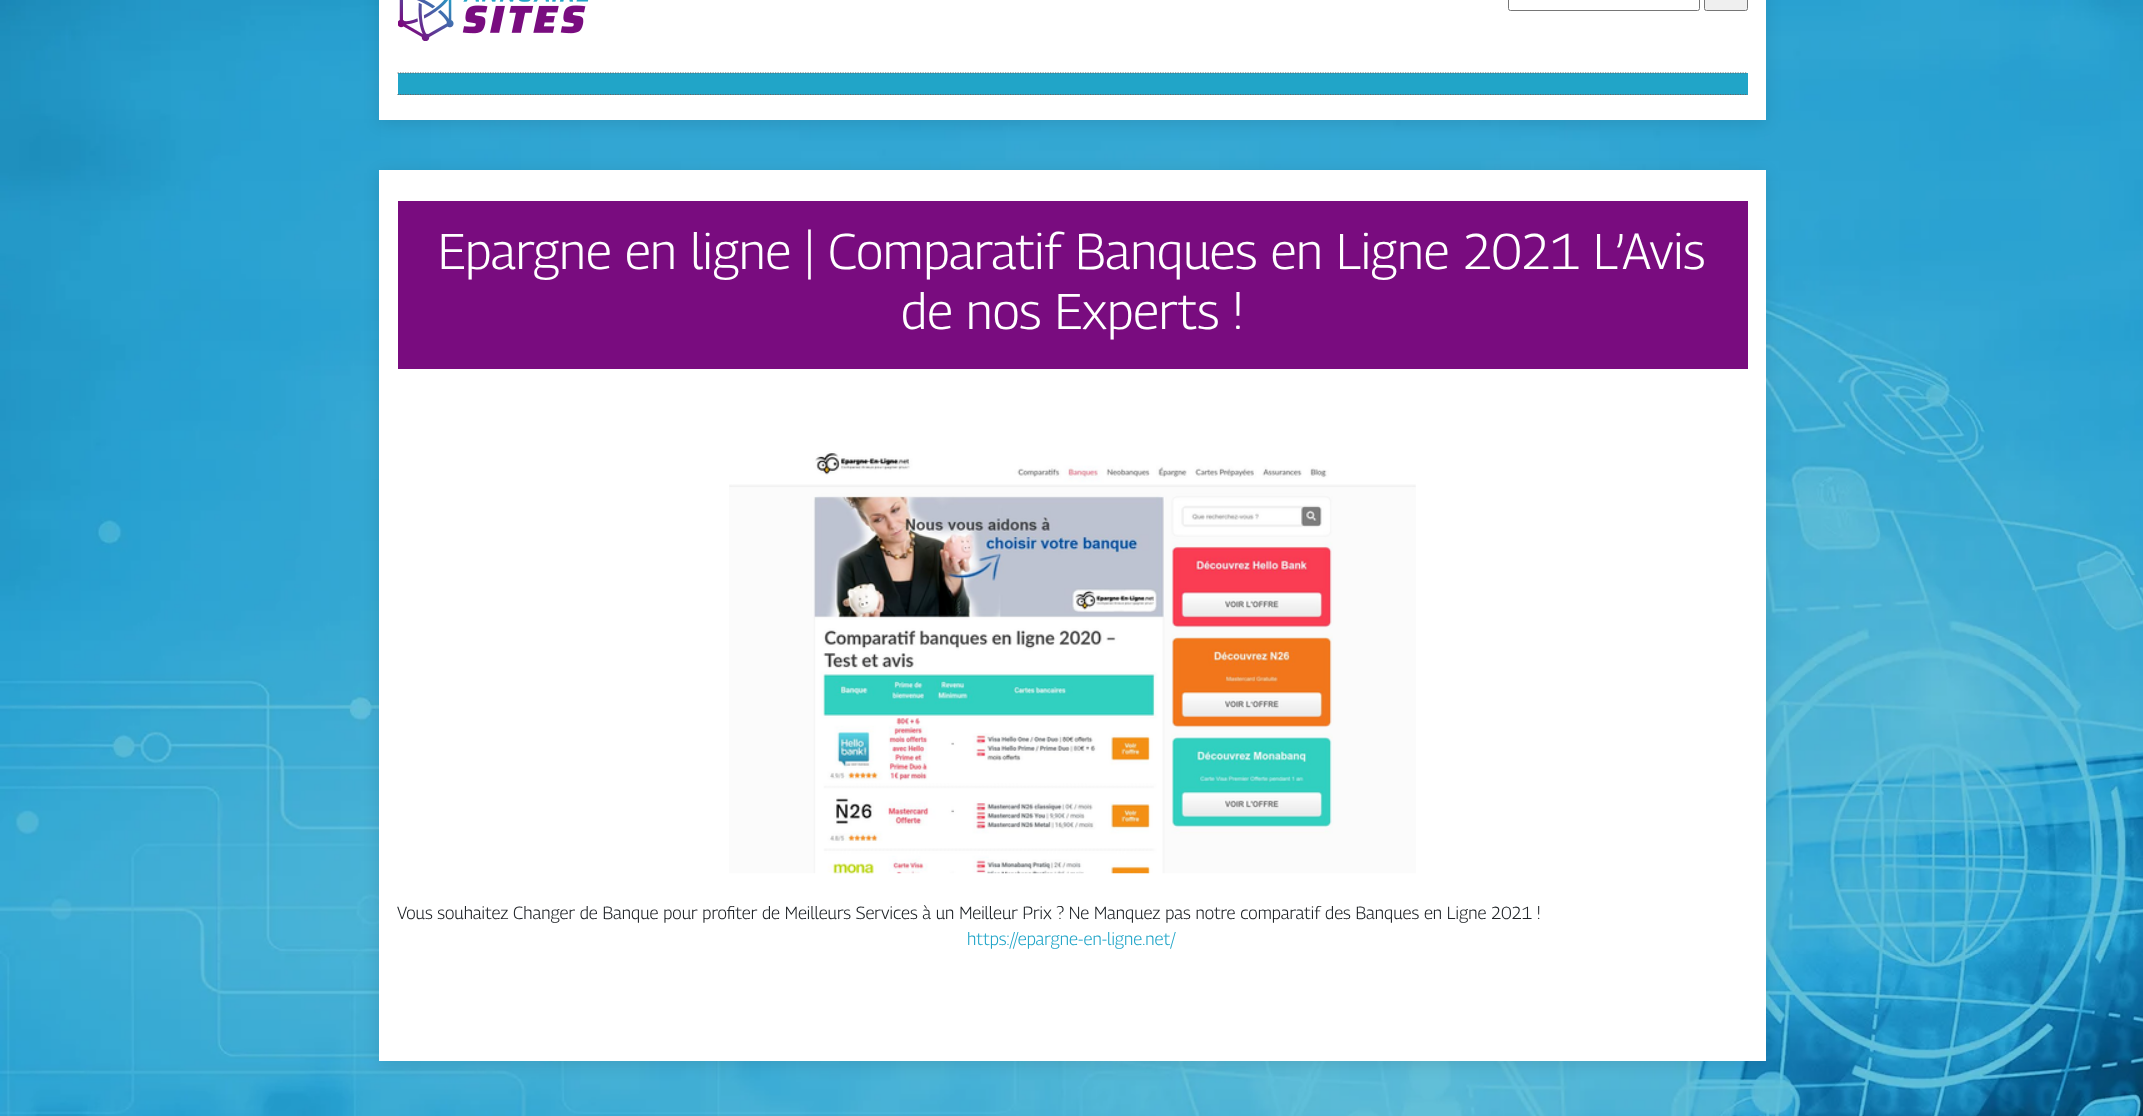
<svg xmlns="http://www.w3.org/2000/svg" xmlns:xlink="http://www.w3.org/1999/xlink" width="2143" height="1116" viewBox="0 0 2143 1116">
<style>
.cls-1{font:100 50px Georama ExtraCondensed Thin;fill:#ffffff}
.cls-2{font:100 17.5px Georama ExtraCondensed Thin;fill:#212529}
.cls-3{font:100 17.5px Georama ExtraCondensed Thin;fill:#21a5c8}
</style>
<rect width="100%" height="100%" fill="#ffffff"/>
<image xlink:href="image0.png" x="0" y="0" width="2143" height="1116"/>
<rect fill="#000000" fill-opacity="0.1" filter="blur(8px)" x="379" y="-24" width="1387" height="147"/>
<rect fill="#ffffff" x="379" y="0" width="1387" height="120"/>
<image xlink:href="image1.png" x="398" y="0" width="191" height="41"/>
<rect fill="none" stroke="#767676" x="1508.5" y="-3.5" width="191" height="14" rx="2"/>
<rect fill="#efefef" stroke="#767676" x="1704.5" y="-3.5" width="43" height="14" rx="2"/>
<rect fill="#21a5c8" x="398" y="73" width="1350" height="22"/>
<path fill="none" stroke="#666666" stroke-width="1.2" stroke-dasharray="1.25 1.25" d="M397.5 73H1747.5"/>
<path fill="none" stroke="#666666" stroke-width="1.2" stroke-dasharray="1.25 1.25" d="M397.5 94.5H1747.5"/>
<rect fill="#000000" fill-opacity="0.1" filter="blur(8px)" x="379" y="173" width="1387" height="891"/>
<rect fill="#ffffff" x="379" y="170" width="1387" height="891"/>
<rect fill="#790c7f" x="398" y="201" width="1350" height="168"/>
<image xlink:href="image2.png" x="729" y="451" width="687" height="423"/>
<text class="cls-1" x="438" y="269">Epargne en ligne | Comparatif Banques en Ligne 2021 L’Avis</text>
<text class="cls-1" x="901" y="329">de nos Experts !</text>
<text class="cls-2" x="397" y="919">Vous souhaitez Changer de Banque pour profiter de Meilleurs Services à un Meilleur Prix ? Ne Manquez pas notre comparatif des Banques en Ligne 2021 !</text>
<text class="cls-3" x="967" y="945">https://epargne-en-ligne.net/</text>
</svg>
